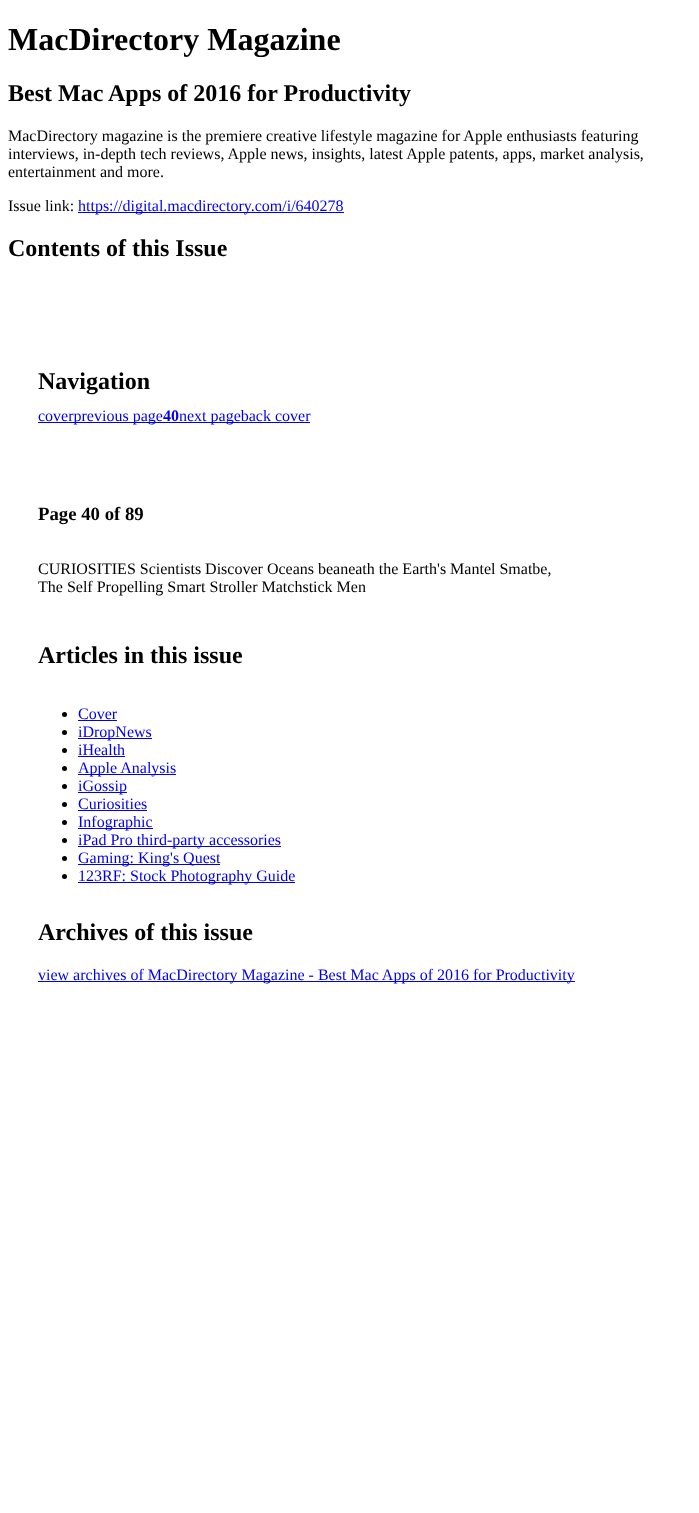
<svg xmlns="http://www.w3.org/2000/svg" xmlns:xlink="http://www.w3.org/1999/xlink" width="699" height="1513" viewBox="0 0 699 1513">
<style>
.cls-1{font:bold 32px Liberation Serif;fill:#000000}
.cls-2{font:bold 24px Liberation Serif;fill:#000000}
.cls-3{font:16px Liberation Serif;fill:#000000}
.cls-4{font:16px Liberation Serif;fill:#0000ee}
.cls-5{font:bold 16px Liberation Serif;fill:#0000ee}
.cls-6{font:bold 18.75px Liberation Serif;fill:#000000}
</style>
<rect width="100%" height="100%" fill="#ffffff"/>
<rect fill="#0000ee" x="78" y="212" width="266" height="1"/>
<rect fill="#0000ee" x="38" y="422" width="272" height="1"/>
<circle fill="#000000" cx="64.5" cy="714.5" r="2.5"/>
<rect fill="#0000ee" x="78" y="720" width="39" height="1"/>
<circle fill="#000000" cx="64.5" cy="732.5" r="2.5"/>
<rect fill="#0000ee" x="78" y="738" width="74" height="1"/>
<circle fill="#000000" cx="64.5" cy="750.5" r="2.5"/>
<rect fill="#0000ee" x="78" y="756" width="47" height="1"/>
<circle fill="#000000" cx="64.5" cy="768.5" r="2.5"/>
<rect fill="#0000ee" x="78" y="774" width="98" height="1"/>
<circle fill="#000000" cx="64.5" cy="786.5" r="2.5"/>
<rect fill="#0000ee" x="78" y="792" width="49" height="1"/>
<circle fill="#000000" cx="64.5" cy="804.5" r="2.5"/>
<rect fill="#0000ee" x="78" y="810" width="69" height="1"/>
<circle fill="#000000" cx="64.5" cy="822.5" r="2.5"/>
<rect fill="#0000ee" x="78" y="828" width="75" height="1"/>
<circle fill="#000000" cx="64.5" cy="840.5" r="2.5"/>
<rect fill="#0000ee" x="78" y="846" width="203" height="1"/>
<circle fill="#000000" cx="64.5" cy="858.5" r="2.5"/>
<rect fill="#0000ee" x="78" y="864" width="142" height="1"/>
<circle fill="#000000" cx="64.5" cy="876.5" r="2.5"/>
<rect fill="#0000ee" x="78" y="882" width="217" height="1"/>
<rect fill="#0000ee" x="38" y="981" width="537" height="1"/>
<text class="cls-1" x="8" y="50">MacDirectory Magazine</text>
<text class="cls-2" x="8" y="101">Best Mac Apps of 2016 for Productivity</text>
<text class="cls-3"><tspan x="8" y="141">MacDirectory magazine is the premiere creative lifestyle magazine for Apple enthusiasts featuring</tspan><tspan x="8" y="159">interviews, in-depth tech reviews, Apple news, insights, latest Apple patents, apps, market analysis,</tspan><tspan x="8" y="177">entertainment and more.</tspan></text>
<text class="cls-3" x="8" y="211">Issue link:</text>
<text class="cls-4" x="78" y="211">https://digital.macdirectory.com/i/640278</text>
<text class="cls-2" x="8" y="256">Contents of this Issue</text>
<text class="cls-2" x="38" y="389">Navigation</text>
<text class="cls-4" x="38" y="421">coverprevious page</text>
<text class="cls-5" x="163" y="421">40</text>
<text class="cls-4" x="179" y="421">next pageback cover</text>
<text class="cls-6" x="38" y="520">Page 40 of 89</text>
<text class="cls-3"><tspan x="38" y="574">CURIOSITIES Scientists Discover Oceans beaneath the Earth's Mantel Smatbe,</tspan><tspan x="38" y="592">The Self Propelling Smart Stroller Matchstick Men</tspan></text>
<text class="cls-2" x="38" y="663">Articles in this issue</text>
<text class="cls-4"><tspan x="78" y="719">Cover</tspan><tspan x="78" y="737">iDropNews</tspan><tspan x="78" y="755">iHealth</tspan><tspan x="78" y="773">Apple Analysis</tspan><tspan x="78" y="791">iGossip</tspan><tspan x="78" y="809">Curiosities</tspan><tspan x="78" y="827">Infographic</tspan><tspan x="78" y="845">iPad Pro third-party accessories</tspan><tspan x="78" y="863">Gaming: King's Quest</tspan><tspan x="78" y="881">123RF: Stock Photography Guide</tspan></text>
<text class="cls-2" x="38" y="940">Archives of this issue</text>
<text class="cls-4" x="38" y="980">view archives of MacDirectory Magazine - Best Mac Apps of 2016 for Productivity</text>
</svg>
